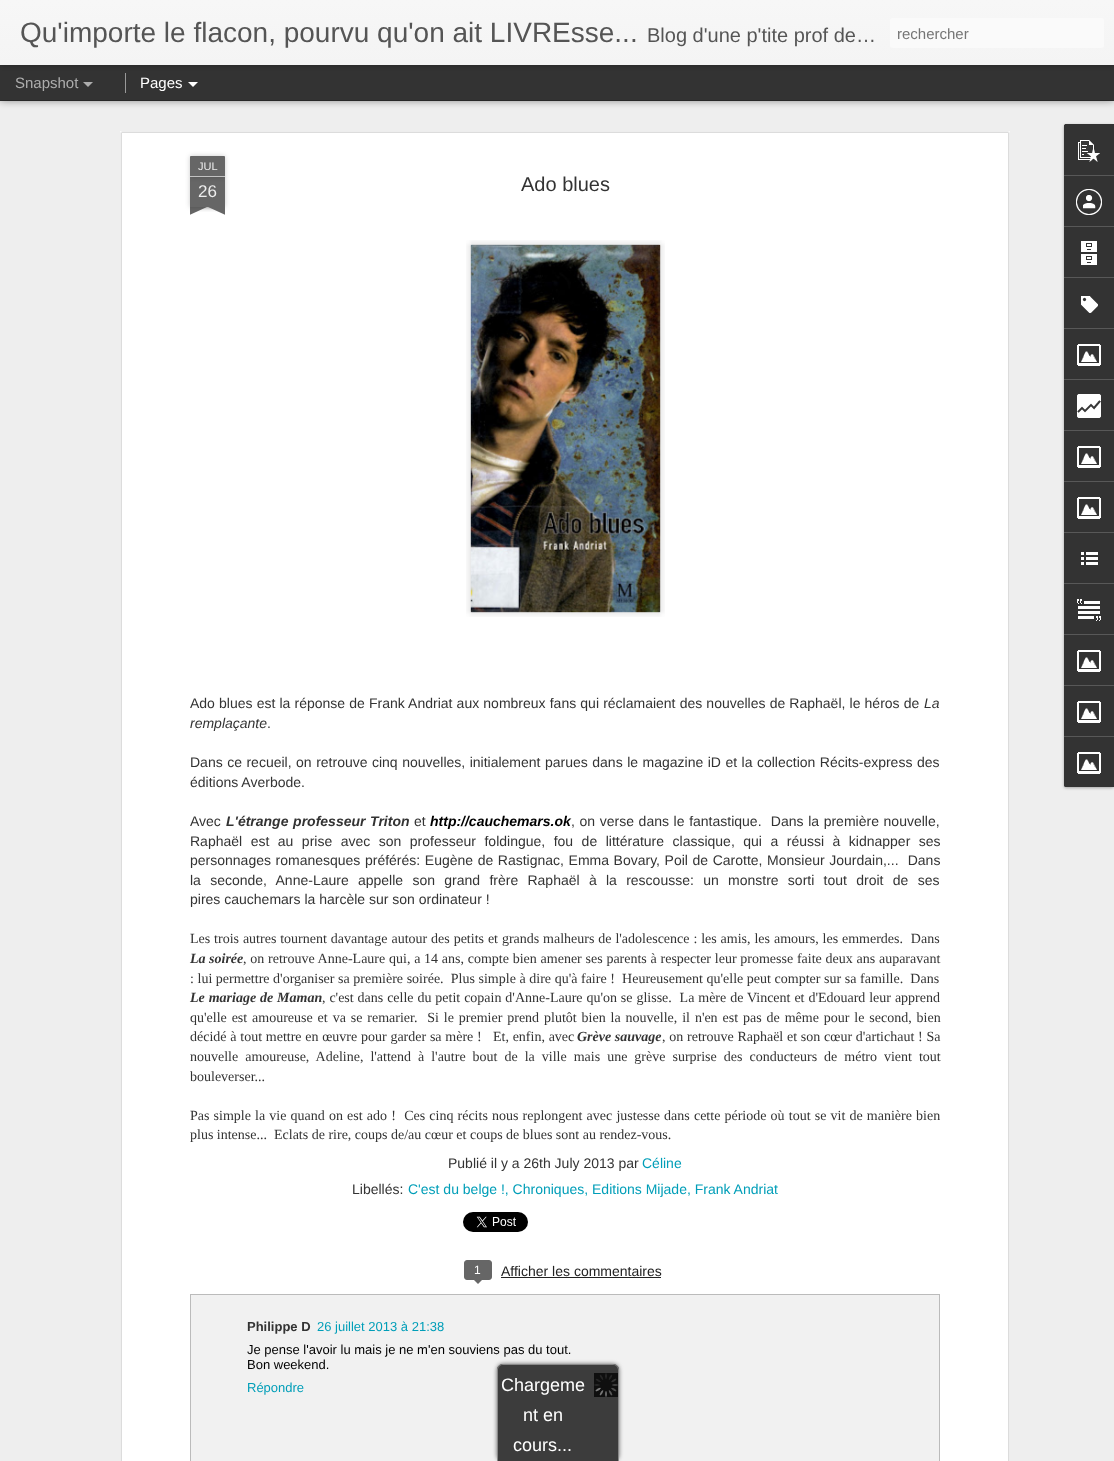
<svg xmlns="http://www.w3.org/2000/svg" xmlns:xlink="http://www.w3.org/1999/xlink" width="1114" height="1461" viewBox="0 0 1114 1461">
<style>
.cls-1{font:28px Liberation Sans;fill:#555555}
.cls-2{font:20px Liberation Sans;fill:#555555}
.cls-3{font:15px Liberation Sans;fill:#757575}
.cls-4{font:15px Liberation Sans;fill:#adadad}
.cls-5{font:15px Liberation Sans;fill:#ffffff}
.cls-6{font:11px Liberation Sans;fill:#eeeeee}
.cls-7{font:17px Liberation Sans;fill:#eeeeee}
.cls-8{font:20px Liberation Sans;fill:#333333}
.cls-9{font:14px Liberation Sans;fill:#333333}
.cls-10{font:italic 14px Liberation Sans;fill:#333333}
.cls-11{font:italic bold 14px Liberation Sans;fill:#333333}
.cls-12{font:italic bold 14px Liberation Sans;fill:#000000}
.cls-13{font:14px Liberation Serif;fill:#333333}
.cls-14{font:italic bold 14px Liberation Serif;fill:#333333}
.cls-15{font:14px Liberation Sans;fill:#009eb8}
.cls-16{font:12px Liberation Sans;fill:#ffffff}
.cls-17{font:14px Liberation Sans;fill:#222222}
.cls-18{font:bold 13px Liberation Sans;fill:#333333}
.cls-19{font:13px Liberation Sans;fill:#009eb8}
.cls-20{font:13px Liberation Sans;fill:#000000}
.cls-21{font:18px Liberation Sans;fill:#ffffff}
</style>
<defs>
<linearGradient id="g1" gradientUnits="userSpaceOnUse" x1="0" y1="0" x2="0" y2="65"><stop offset="0" stop-color="#f7f7f7"/><stop offset="1" stop-color="#f4f4f4"/></linearGradient>
<clipPath id="clip1"><rect x="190" y="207" width="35" height="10"/></clipPath>
<clipPath id="clip2"><rect x="190" y="207" width="35" height="10"/></clipPath>
</defs>
<rect width="100%" height="100%" fill="#333333"/>
<rect fill="#eeeeee" x="0" y="101" width="1114" height="1360"/>
<rect fill="#000000" fill-opacity="0.5" filter="blur(4px)" x="0" y="65" width="1114" height="35"/>
<rect fill="#333333" x="0" y="65" width="1114" height="35"/>
<rect fill="#999999" x="125" y="73" width="1" height="20"/>
<rect fill="#000000" fill-opacity="0.3" filter="blur(2.5px)" x="0" y="0" width="1114" height="65"/>
<rect fill="url(#g1)" x="0" y="0" width="1114" height="65"/>
<rect fill="#fafafa" x="890" y="18" width="214" height="30" rx="3"/>
<path fill="#adadad" d="M83 82H93L88 87Z"/>
<path fill="#ffffff" d="M188 82H198L193 87Z"/>
<rect fill="#ffffff" x="120" y="131" width="890" height="1330"/>
<image xlink:href="image0.png" x="120" y="131" width="890" height="1330"/>
<rect fill="#000000" fill-opacity="0.2" filter="blur(2.5px)" x="190" y="177" width="35" height="30"/>
<rect fill="#666666" x="190" y="177" width="35" height="30"/>
<rect fill="#000000" fill-opacity="0.2" filter="blur(2.5px)" x="190" y="156" width="35" height="21" rx="1"/>
<path fill="#666666" d="M191 156H224C224.5 156 225 156.5 225 157V177H190V157C190 156.5 190.5 156 191 156Z"/>
<rect fill="#c2c2c2" x="190" y="176" width="35" height="1"/>
<g clip-path="url(#clip1)">
<rect fill="#000000" fill-opacity="0.2" filter="blur(2.5px)" x="181" y="197" width="50" height="10"/>
</g>
<g clip-path="url(#clip2)">
<path fill="#666666" d="M181 208L227 187L231 196L185 217Z"/>
</g>
<g clip-path="url(#clip1)">
<rect fill="#000000" fill-opacity="0.2" filter="blur(2.5px)" x="184" y="197" width="50" height="10"/>
</g>
<g clip-path="url(#clip2)">
<path fill="#666666" d="M188 187L234 208L230 217L184 196Z"/>
</g>
<image xlink:href="image1.png" x="466" y="240" width="199" height="377"/>
<image xlink:href="image2.png" x="470" y="244" width="191" height="369"/>
<image xlink:href="image3.png" x="463" y="1212" width="65" height="20"/>
<rect fill="#666666" stroke="#666666" x="464.5" y="1260.5" width="27" height="19" rx="2.5"/>
<path fill="#666666" d="M473 1279H483L478 1284Z"/>
<rect fill="#222222" x="501" y="1277" width="160" height="1"/>
<rect fill="#f1f1f1" stroke="#bbbbbb" x="190.5" y="1294.5" width="749" height="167"/>
<rect fill="#000000" fill-opacity="0.3" filter="blur(1.5px)" x="1064" y="125" width="50" height="663" rx="2"/>
<path fill="#333333" d="M1066 124H1114V787H1066C1065 787 1064 786 1064 785V126C1064 125 1065 124 1066 124Z"/>
<path fill="#333333" d="M1066 124H1114V175H1064V126C1064 125 1065 124 1066 124Z"/>
<image xlink:href="image4.png" x="1078" y="140" width="22" height="22"/>
<rect fill="#585858" x="1064" y="175" width="50" height="1"/>
<image xlink:href="image5.png" x="1076" y="189" width="26" height="26"/>
<rect fill="#585858" x="1064" y="226" width="50" height="1"/>
<image xlink:href="image6.png" x="1081" y="241" width="16" height="24"/>
<rect fill="#585858" x="1064" y="277" width="50" height="1"/>
<image xlink:href="image7.png" x="1081" y="296" width="17" height="17"/>
<rect fill="#585858" x="1064" y="328" width="50" height="1"/>
<image xlink:href="image8.png" x="1077" y="344" width="24" height="22"/>
<rect fill="#585858" x="1064" y="379" width="50" height="1"/>
<image xlink:href="image9.png" x="1077" y="394" width="24" height="24"/>
<rect fill="#585858" x="1064" y="430" width="50" height="1"/>
<image xlink:href="image8.png" x="1077" y="446" width="24" height="22"/>
<rect fill="#585858" x="1064" y="481" width="50" height="1"/>
<image xlink:href="image8.png" x="1077" y="497" width="24" height="22"/>
<rect fill="#585858" x="1064" y="532" width="50" height="1"/>
<image xlink:href="image10.png" x="1081" y="552" width="17" height="13"/>
<rect fill="#585858" x="1064" y="583" width="50" height="1"/>
<image xlink:href="image11.png" x="1077" y="599" width="24" height="22"/>
<rect fill="#585858" x="1064" y="634" width="50" height="1"/>
<image xlink:href="image8.png" x="1077" y="650" width="24" height="22"/>
<rect fill="#585858" x="1064" y="685" width="50" height="1"/>
<image xlink:href="image8.png" x="1077" y="701" width="24" height="22"/>
<path fill="#333333" d="M1064 736H1114V787H1066C1065 787 1064 786 1064 785Z"/>
<rect fill="#585858" x="1064" y="736" width="50" height="1"/>
<image xlink:href="image8.png" x="1077" y="752" width="24" height="22"/>
<rect fill="#636363" filter="blur(2px)" x="497" y="1364" width="122" height="97" rx="6"/>
<path fill="#3c3c3c" d="M503 1364H613C616.5 1364 619 1366.5 619 1370V1461H497V1370C497 1366.5 499.5 1364 503 1364Z"/>
<path fill="#898989" fill-rule="evenodd" d="M503 1364H613C616 1364 619 1367 619 1370V1461H497V1370C497 1367 500 1364 503 1364ZM503 1365H613C616 1365 618 1367 618 1370V1461H498V1370C498 1367 500 1365 503 1365Z"/>
<image xlink:href="image12.png" x="594" y="1373" width="24" height="24"/>
<text class="cls-1" x="20" y="42">Qu'importe le flacon, pourvu qu'on ait LIVREsse...</text>
<text class="cls-2" x="647" y="42">Blog d'une p'tite prof de…</text>
<text class="cls-3" x="897" y="39">rechercher</text>
<text class="cls-4" x="15" y="88">Snapshot</text>
<text class="cls-5" x="140" y="88">Pages</text>
<text class="cls-6" x="198" y="170">JUL</text>
<text class="cls-7" x="198" y="197">26</text>
<text class="cls-8" x="521" y="191">Ado blues</text>
<text class="cls-9" x="190" y="708" word-spacing="0.25">Ado blues est la réponse de Frank Andriat aux nombreux fans qui réclamaient des nouvelles de Raphaël, le héros de</text>
<text class="cls-10" x="924" y="708">La</text>
<text class="cls-10" x="190" y="728">remplaçante</text>
<text class="cls-9" x="267" y="728">.</text>
<text class="cls-9"><tspan x="190" y="767" word-spacing="0.6">Dans ce recueil, on retrouve cinq nouvelles, initialement parues dans le magazine iD et la collection Récits-express des</tspan><tspan x="190" y="787">éditions Averbode.</tspan></text>
<text class="cls-9" x="190" y="826">Avec</text>
<text class="cls-11" x="226" y="826" word-spacing="0.75">L'étrange professeur Triton</text>
<text class="cls-9" x="414" y="826">et</text>
<text class="cls-12" x="430" y="826">http://cauchemars.ok</text>
<text class="cls-9" xml:space="preserve" x="571" y="826" word-spacing="0.75">, on verse dans le fantastique.  Dans la première nouvelle,</text>
<text class="cls-9" xml:space="preserve"><tspan x="190" y="846" word-spacing="4.6">Raphaël est au prise avec son professeur foldingue, fou de littérature classique, qui a réussi à kidnapper ses</tspan><tspan x="190" y="865" word-spacing="0.7">personnages romanesques préférés: Eugène de Rastignac, Emma Bovary, Poil de Carotte, Monsieur Jourdain,...  Dans</tspan><tspan x="190" y="885" word-spacing="5.4">la seconde, Anne-Laure appelle son grand frère Raphaël à la rescousse: un monstre sorti tout droit de ses</tspan><tspan x="190" y="904">pires cauchemars la harcèle sur son ordinateur !</tspan></text>
<text class="cls-13" xml:space="preserve" x="190" y="943" word-spacing="0.4">Les trois autres tournent davantage autour des petits et grands malheurs de l'adolescence : les amis, les amours, les emmerdes.  Dans</text>
<text class="cls-14" x="190" y="963">La soirée</text>
<text class="cls-13" x="243" y="963" word-spacing="0.25">, on retrouve Anne-Laure qui, a 14 ans, compte bien amener ses parents à respecter leur promesse faite deux ans auparavant</text>
<text class="cls-13" xml:space="preserve" x="190" y="983" word-spacing="0.1">: lui permettre d'organiser sa première soirée.  Plus simple à dire qu'à faire !  Heureusement qu'elle peut compter sur sa famille.  Dans</text>
<text class="cls-14" x="190" y="1002" word-spacing="0.4">Le mariage de Maman</text>
<text class="cls-13" xml:space="preserve" x="322" y="1002" word-spacing="0.4">, c'est dans celle du petit copain d'Anne-Laure qu'on se glisse.  La mère de Vincent et d'Edouard leur apprend</text>
<text class="cls-13" xml:space="preserve"><tspan x="190" y="1022" word-spacing="1.4">qu'elle est amoureuse et va se remarier.  Si le premier prend plutôt bien la nouvelle, il n'en est pas de même pour le second, bien</tspan><tspan x="190" y="1041" word-spacing="0.25">décidé à tout mettre en œuvre pour garder sa mère !   Et, enfin, avec</tspan></text>
<text class="cls-14" x="577" y="1041">Grève sauvage</text>
<text class="cls-13" x="662" y="1041" word-spacing="0.25">, on retrouve Raphaël et son cœur d'artichaut ! Sa</text>
<text class="cls-13"><tspan x="190" y="1061" word-spacing="3.5">nouvelle amoureuse, Adeline, l'attend à l'autre bout de la ville mais une grève surprise des conducteurs de métro vient tout</tspan><tspan x="190" y="1081">bouleverser...</tspan></text>
<text class="cls-13" xml:space="preserve"><tspan x="190" y="1120" word-spacing="0.65">Pas simple la vie quand on est ado !  Ces cinq récits nous replongent avec justesse dans cette période où tout se vit de manière bien</tspan><tspan x="190" y="1139">plus intense...  Eclats de rire, coups de/au cœur et coups de blues sont au rendez-vous.</tspan></text>
<text class="cls-9" x="448" y="1168">Publié il y a 26th July 2013 par</text>
<text class="cls-15" x="642" y="1168">Céline</text>
<text class="cls-9" x="352" y="1194">Libellés:</text>
<text class="cls-15" x="408" y="1194">C'est du belge !, Chroniques, Editions Mijade, Frank Andriat</text>
<text class="cls-16" x="474" y="1274">1</text>
<text class="cls-17" x="501" y="1276">Afficher les commentaires</text>
<text class="cls-18" x="247" y="1331">Philippe D</text>
<text class="cls-19" x="317" y="1331">26 juillet 2013 à 21:38</text>
<text class="cls-20"><tspan x="247" y="1354">Je pense l'avoir lu mais je ne m'en souviens pas du tout.</tspan><tspan x="247" y="1369">Bon weekend.</tspan></text>
<text class="cls-19" x="247" y="1392">Répondre</text>
<text class="cls-21" x="501" y="1391">Chargeme</text>
<text class="cls-21" x="523" y="1421">nt en</text>
<text class="cls-21" x="513" y="1451">cours...</text>
</svg>
